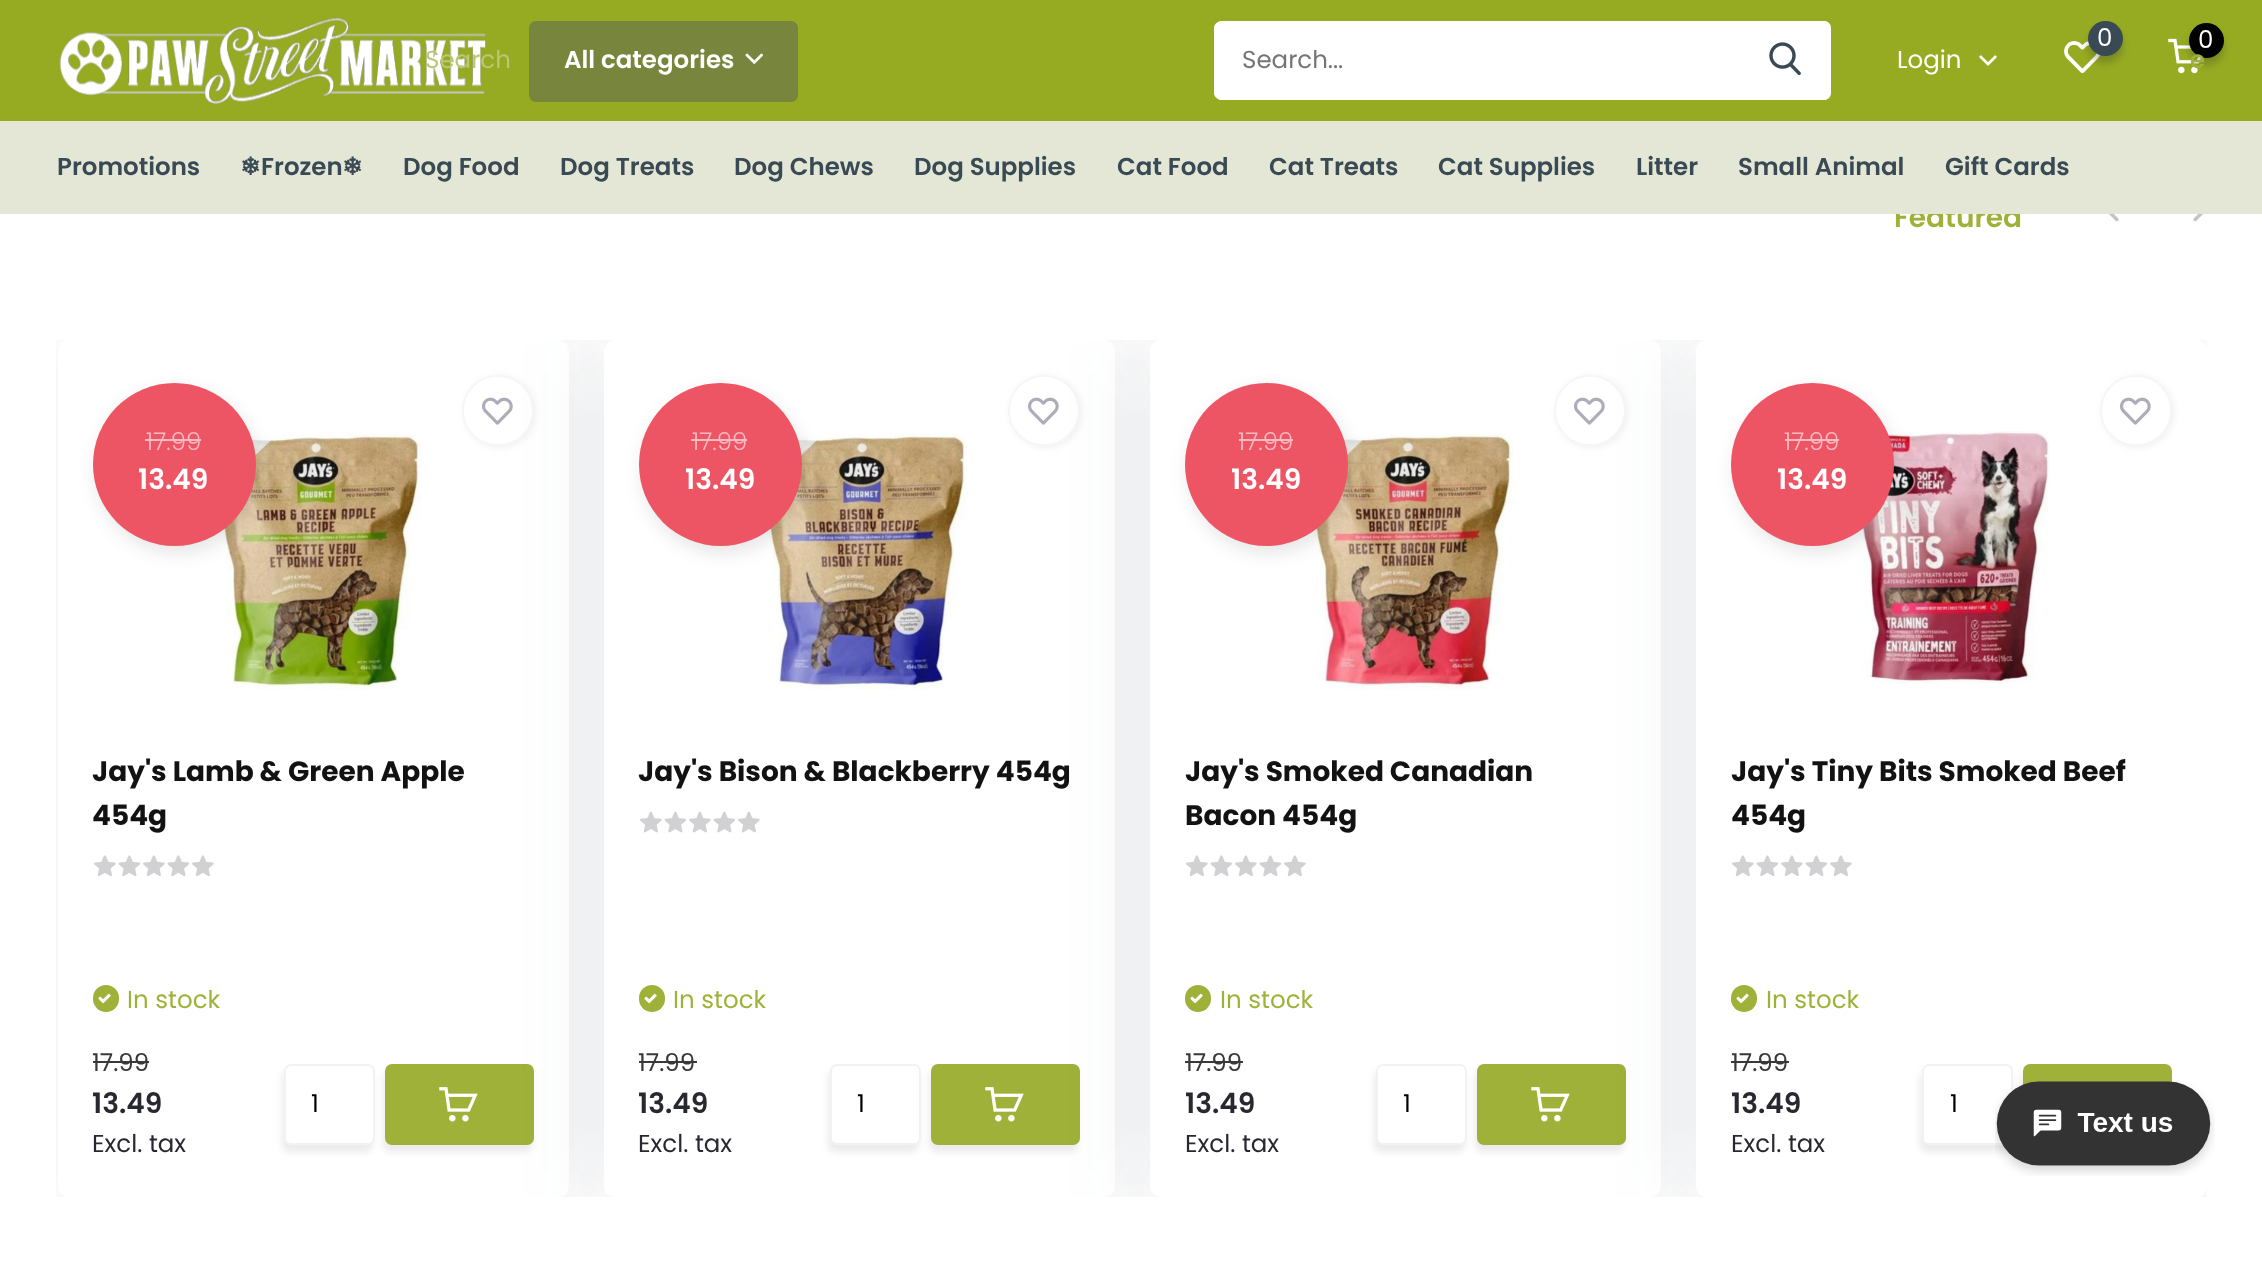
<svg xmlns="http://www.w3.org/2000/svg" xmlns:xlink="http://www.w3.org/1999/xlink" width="2262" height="1287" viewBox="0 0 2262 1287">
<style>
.cls-1{font:600 24.5px Poppins;fill:#ffffff}
.cls-2{font:24.5px Poppins;fill:#ffffff}
.cls-3{font:24.5px Poppins;fill:#757575}
.cls-4{font:24.5px Poppins;fill:#bbc773}
.cls-5{font:500 24.5px Poppins;letter-spacing:1px;fill:#9fb139}
.cls-6{font:600 28px Poppins;fill:#9fb139}
.cls-7{font:600 24.5px Poppins;fill:#394a54}
.cls-8{font:bold 24.5px DejaVu Sans;fill:#394a54}
.cls-9{font:300 24.5px Poppins;fill:#f8bbc1}
.cls-10{font:600 28px Poppins;fill:#ffffff}
.cls-11{font:bold 28px Poppins;fill:#121212}
.cls-12{font:24.5px Poppins;fill:#9fb139}
.cls-13{font:24.5px Poppins;fill:#393939}
.cls-14{font:600 28px Poppins;fill:#282830}
.cls-15{font:24.5px Poppins;fill:#282830}
.cls-16{font:24.5px Poppins;fill:#000000}
</style>
<defs>
<clipPath id="clip1"><rect x="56" y="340" width="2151" height="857"/></clipPath>
</defs>
<rect width="100%" height="100%" fill="#ffffff"/>
<rect fill="#96ab21" x="0" y="0" width="2262" height="121"/>
<image xlink:href="image0.png" x="59" y="17" width="427" height="88"/>
<rect fill="#78853c" x="529" y="21" width="269" height="81" rx="7"/>
<image xlink:href="image1.png" x="745" y="53" width="18" height="11"/>
<image xlink:href="image2.png" x="2064" y="41" width="36" height="33"/>
<rect fill="#282830" fill-opacity="0.25" filter="blur(3.5px)" x="2088" y="28" width="35" height="35" rx="17.5"/>
<circle fill="#394a54" cx="2105.5" cy="38.5" r="17.5"/>
<image xlink:href="image3.png" x="2168" y="38" width="34" height="36"/>
<rect fill="#282830" fill-opacity="0.25" filter="blur(3.5px)" x="2189" y="30" width="35" height="35" rx="17.5"/>
<circle fill="#000000" cx="2206.5" cy="40.5" r="17.5"/>
<path fill="#ffffff" d="M1222 21H1743V100H1222C1218 100 1215 97 1215 93V28C1215 24 1218 21 1222 21Z"/>
<path fill="#ffffff" fill-rule="evenodd" d="M1222 21H1743V100H1222C1218 100 1214 97 1214 93V28C1214 24 1218 21 1222 21ZM1222 23H1743V98H1222C1219 98 1216 96 1216 93V28C1216 25 1219 23 1222 23Z"/>
<path fill="#ffffff" d="M1743 21H1824C1828 21 1831 24 1831 28V93C1831 97 1828 100 1824 100H1743Z"/>
<path fill="#ffffff" fill-rule="evenodd" d="M1743 21H1824C1827 21 1830 24 1830 28V93C1830 97 1827 100 1824 100H1743ZM1743 23H1824C1826 23 1829 25 1829 28V93C1829 96 1826 98 1824 98H1743Z"/>
<image xlink:href="image4.png" x="1769" y="42" width="32" height="34"/>
<image xlink:href="image5.png" x="1979" y="55" width="18" height="11"/>
<g clip-path="url(#clip1)">
<rect fill="#263f4d" fill-opacity="0.1" filter="blur(44px)" x="61" y="343" width="511" height="858" rx="11"/>
</g>
<rect fill="#ffffff" x="58" y="340" width="511" height="857" rx="11"/>
<rect fill="#000000" fill-opacity="0.06" filter="blur(3.5px)" x="464" y="376" width="72" height="72" rx="36"/>
<rect fill="#ffffff" stroke="#f6f6f6" stroke-width="2" x="463" y="376" width="70" height="69" rx="34.5"/>
<image xlink:href="image9.png" x="482" y="397" width="31" height="28"/>
<rect fill="#000000" fill-opacity="0.08" filter="blur(3.5px)" x="383" y="1071" width="149" height="81" rx="7"/>
<rect fill="#9fb139" x="385" y="1064" width="149" height="81" rx="7"/>
<image xlink:href="image13.png" x="439" y="1087" width="39" height="35"/>
<g clip-path="url(#clip1)">
<rect fill="#263f4d" fill-opacity="0.1" filter="blur(44px)" x="607" y="343" width="511" height="858" rx="11"/>
</g>
<rect fill="#ffffff" x="604" y="340" width="511" height="857" rx="11"/>
<rect fill="#000000" fill-opacity="0.06" filter="blur(3.5px)" x="1010" y="376" width="72" height="72" rx="36"/>
<rect fill="#ffffff" stroke="#f6f6f6" stroke-width="2" x="1009" y="376" width="70" height="69" rx="34.5"/>
<image xlink:href="image9.png" x="1028" y="397" width="31" height="28"/>
<rect fill="#000000" fill-opacity="0.08" filter="blur(3.5px)" x="929" y="1071" width="149" height="81" rx="7"/>
<rect fill="#9fb139" x="931" y="1064" width="149" height="81" rx="7"/>
<image xlink:href="image13.png" x="985" y="1087" width="39" height="35"/>
<g clip-path="url(#clip1)">
<rect fill="#263f4d" fill-opacity="0.1" filter="blur(44px)" x="1153" y="343" width="511" height="858" rx="11"/>
</g>
<rect fill="#ffffff" x="1150" y="340" width="511" height="857" rx="11"/>
<rect fill="#000000" fill-opacity="0.06" filter="blur(3.5px)" x="1556" y="376" width="72" height="72" rx="36"/>
<rect fill="#ffffff" stroke="#f6f6f6" stroke-width="2" x="1555" y="376" width="70" height="69" rx="34.5"/>
<image xlink:href="image9.png" x="1574" y="397" width="31" height="28"/>
<rect fill="#000000" fill-opacity="0.08" filter="blur(3.5px)" x="1475" y="1071" width="149" height="81" rx="7"/>
<rect fill="#9fb139" x="1477" y="1064" width="149" height="81" rx="7"/>
<image xlink:href="image13.png" x="1531" y="1087" width="39" height="35"/>
<g clip-path="url(#clip1)">
<rect fill="#263f4d" fill-opacity="0.1" filter="blur(44px)" x="1699" y="343" width="511" height="858" rx="11"/>
</g>
<image xlink:href="image6.png" x="2109" y="214" width="10" height="8"/>
<image xlink:href="image7.png" x="2193" y="214" width="10" height="8"/>
<image xlink:href="image8.png" x="215" y="434" width="206" height="256"/>
<rect fill="#000000" fill-opacity="0.1" filter="blur(9px)" x="96" y="390" width="163" height="163" rx="81.5"/>
<circle fill="#ed5565" cx="174.5" cy="464.5" r="81.5"/>
<rect fill="#f8bbc1" x="145" y="439" width="56" height="2"/>
<image xlink:href="image10.png" x="94" y="855" width="22" height="21"/>
<image xlink:href="image11.png" x="118" y="855" width="23" height="22"/>
<image xlink:href="image10.png" x="143" y="855" width="22" height="21"/>
<image xlink:href="image11.png" x="167" y="855" width="23" height="22"/>
<image xlink:href="image10.png" x="192" y="855" width="22" height="21"/>
<rect fill="#9fb139" x="93" y="985" width="26" height="27" rx="13"/>
<image xlink:href="image12.png" x="98" y="993" width="13" height="11"/>
<rect fill="#393939" x="93" y="1061" width="56" height="2"/>
<rect fill="#000000" fill-opacity="0.08" filter="blur(3.5px)" x="282" y="1071" width="91" height="81" rx="7"/>
<rect fill="#ffffff" stroke="#f2f2f2" stroke-width="2" x="285" y="1065" width="89" height="79" rx="6"/>
<image xlink:href="image14.png" x="760" y="433" width="207" height="257"/>
<rect fill="#000000" fill-opacity="0.1" filter="blur(9px)" x="642" y="390" width="163" height="163" rx="81.5"/>
<circle fill="#ed5565" cx="720.5" cy="464.5" r="81.5"/>
<rect fill="#f8bbc1" x="691" y="439" width="56" height="2"/>
<image xlink:href="image15.png" x="640" y="811" width="22" height="22"/>
<image xlink:href="image16.png" x="664" y="811" width="22" height="22"/>
<image xlink:href="image15.png" x="689" y="811" width="22" height="22"/>
<image xlink:href="image16.png" x="713" y="811" width="22" height="22"/>
<image xlink:href="image15.png" x="738" y="811" width="22" height="22"/>
<rect fill="#9fb139" x="639" y="985" width="26" height="27" rx="13"/>
<image xlink:href="image12.png" x="644" y="993" width="13" height="11"/>
<rect fill="#393939" x="639" y="1061" width="58" height="2"/>
<rect fill="#000000" fill-opacity="0.08" filter="blur(3.5px)" x="828" y="1071" width="91" height="81" rx="7"/>
<rect fill="#ffffff" stroke="#f2f2f2" stroke-width="2" x="831" y="1065" width="89" height="79" rx="6"/>
<image xlink:href="image17.png" x="1306" y="434" width="207" height="257"/>
<rect fill="#000000" fill-opacity="0.1" filter="blur(9px)" x="1188" y="390" width="163" height="163" rx="81.5"/>
<circle fill="#ed5565" cx="1266.5" cy="464.5" r="81.5"/>
<rect fill="#f8bbc1" x="1239" y="439" width="54" height="2"/>
<image xlink:href="image10.png" x="1186" y="855" width="22" height="21"/>
<image xlink:href="image11.png" x="1210" y="855" width="23" height="22"/>
<image xlink:href="image10.png" x="1235" y="855" width="22" height="21"/>
<image xlink:href="image11.png" x="1259" y="855" width="23" height="22"/>
<image xlink:href="image10.png" x="1284" y="855" width="22" height="21"/>
<rect fill="#9fb139" x="1185" y="985" width="26" height="27" rx="13"/>
<image xlink:href="image12.png" x="1190" y="993" width="13" height="11"/>
<rect fill="#393939" x="1185" y="1061" width="58" height="2"/>
<rect fill="#000000" fill-opacity="0.08" filter="blur(3.5px)" x="1374" y="1071" width="91" height="81" rx="7"/>
<rect fill="#ffffff" stroke="#f2f2f2" stroke-width="2" x="1377" y="1065" width="89" height="79" rx="6"/>
<rect fill="#ffffff" x="1696" y="340" width="511" height="857" rx="11"/>
<image xlink:href="image18.png" x="1852" y="431" width="198" height="253"/>
<rect fill="#000000" fill-opacity="0.1" filter="blur(9px)" x="1734" y="390" width="163" height="163" rx="81.5"/>
<circle fill="#ed5565" cx="1812.5" cy="464.5" r="81.5"/>
<rect fill="#f8bbc1" x="1785" y="439" width="54" height="2"/>
<rect fill="#000000" fill-opacity="0.06" filter="blur(3.5px)" x="2102" y="376" width="72" height="72" rx="36"/>
<rect fill="#ffffff" stroke="#f6f6f6" stroke-width="2" x="2101" y="376" width="70" height="69" rx="34.5"/>
<image xlink:href="image9.png" x="2120" y="397" width="31" height="28"/>
<image xlink:href="image10.png" x="1732" y="855" width="22" height="21"/>
<image xlink:href="image11.png" x="1756" y="855" width="23" height="22"/>
<image xlink:href="image10.png" x="1781" y="855" width="22" height="21"/>
<image xlink:href="image11.png" x="1805" y="855" width="23" height="22"/>
<image xlink:href="image10.png" x="1830" y="855" width="22" height="21"/>
<rect fill="#9fb139" x="1731" y="985" width="26" height="27" rx="13"/>
<image xlink:href="image12.png" x="1736" y="993" width="13" height="11"/>
<rect fill="#393939" x="1731" y="1061" width="58" height="2"/>
<rect fill="#000000" fill-opacity="0.08" filter="blur(3.5px)" x="1920" y="1071" width="91" height="81" rx="7"/>
<rect fill="#000000" fill-opacity="0.08" filter="blur(3.5px)" x="2021" y="1071" width="149" height="81" rx="7"/>
<rect fill="#ffffff" stroke="#f2f2f2" stroke-width="2" x="1923" y="1065" width="89" height="79" rx="6"/>
<rect fill="#9fb139" x="2023" y="1064" width="149" height="81" rx="7"/>
<image xlink:href="image19.png" x="1995" y="1081" width="220" height="95"/>
<text class="cls-1" x="564" y="68">All categories</text>
<text class="cls-2" x="2097" y="46">0</text>
<text class="cls-2" x="2198" y="48">0</text>
<text class="cls-3" x="1242" y="68">Search...</text>
<text class="cls-2" x="1897" y="68">Login</text>
<text class="cls-4" x="425" y="68">Search</text>
<text class="cls-5" x="2190" y="68">e</text>
<text class="cls-6" x="1894" y="227">Featured</text>
<rect fill="#e4e7d6" x="0" y="121" width="2262" height="93"/>
<text class="cls-7" x="1945" y="175">Gift Cards</text>
<text class="cls-7" x="1738" y="175">Small Animal</text>
<text class="cls-7" x="1636" y="175">Litter</text>
<text class="cls-7" x="1438" y="175">Cat Supplies</text>
<text class="cls-7" x="1269" y="175">Cat Treats</text>
<text class="cls-7" x="1117" y="175">Cat Food</text>
<text class="cls-7" x="914" y="175">Dog Supplies</text>
<text class="cls-7" x="734" y="175">Dog Chews</text>
<text class="cls-7" x="560" y="175">Dog Treats</text>
<text class="cls-7" x="403" y="175">Dog Food</text>
<text class="cls-8" x="342" y="175">❄</text>
<text class="cls-7" x="261" y="175">Frozen</text>
<text class="cls-8" x="240" y="175">❄</text>
<text class="cls-7" x="57" y="175">Promotions</text>
<text class="cls-9" x="146" y="450">17.99</text>
<text class="cls-10" x="138" y="489">13.49</text>
<text class="cls-11"><tspan x="92" y="781">Jay's Lamb &amp; Green Apple</tspan><tspan x="92" y="825">454g</tspan></text>
<text class="cls-12" x="127" y="1008">In stock</text>
<text class="cls-13" x="92" y="1071">17.99</text>
<text class="cls-14" x="92" y="1113">13.49</text>
<text class="cls-15" x="92" y="1152">Excl. tax</text>
<text class="cls-16" x="311" y="1112">1</text>
<text class="cls-9" x="692" y="450">17.99</text>
<text class="cls-10" x="685" y="489">13.49</text>
<text class="cls-11" x="638" y="781">Jay's Bison &amp; Blackberry 454g</text>
<text class="cls-12" x="673" y="1008">In stock</text>
<text class="cls-13" x="638" y="1071">17.99</text>
<text class="cls-14" x="638" y="1113">13.49</text>
<text class="cls-15" x="638" y="1152">Excl. tax</text>
<text class="cls-16" x="857" y="1112">1</text>
<text class="cls-9" x="1238" y="450">17.99</text>
<text class="cls-10" x="1231" y="489">13.49</text>
<text class="cls-11"><tspan x="1185" y="781">Jay's Smoked Canadian</tspan><tspan x="1185" y="825">Bacon 454g</tspan></text>
<text class="cls-12" x="1220" y="1008">In stock</text>
<text class="cls-13" x="1185" y="1071">17.99</text>
<text class="cls-14" x="1185" y="1113">13.49</text>
<text class="cls-15" x="1185" y="1152">Excl. tax</text>
<text class="cls-16" x="1403" y="1112">1</text>
<text class="cls-9" x="1784" y="450">17.99</text>
<text class="cls-10" x="1777" y="489">13.49</text>
<text class="cls-11"><tspan x="1731" y="781">Jay's Tiny Bits Smoked Beef</tspan><tspan x="1731" y="825">454g</tspan></text>
<text class="cls-12" x="1766" y="1008">In stock</text>
<text class="cls-13" x="1731" y="1071">17.99</text>
<text class="cls-14" x="1731" y="1113">13.49</text>
<text class="cls-15" x="1731" y="1152">Excl. tax</text>
<text class="cls-16" x="1950" y="1112">1</text>
</svg>
